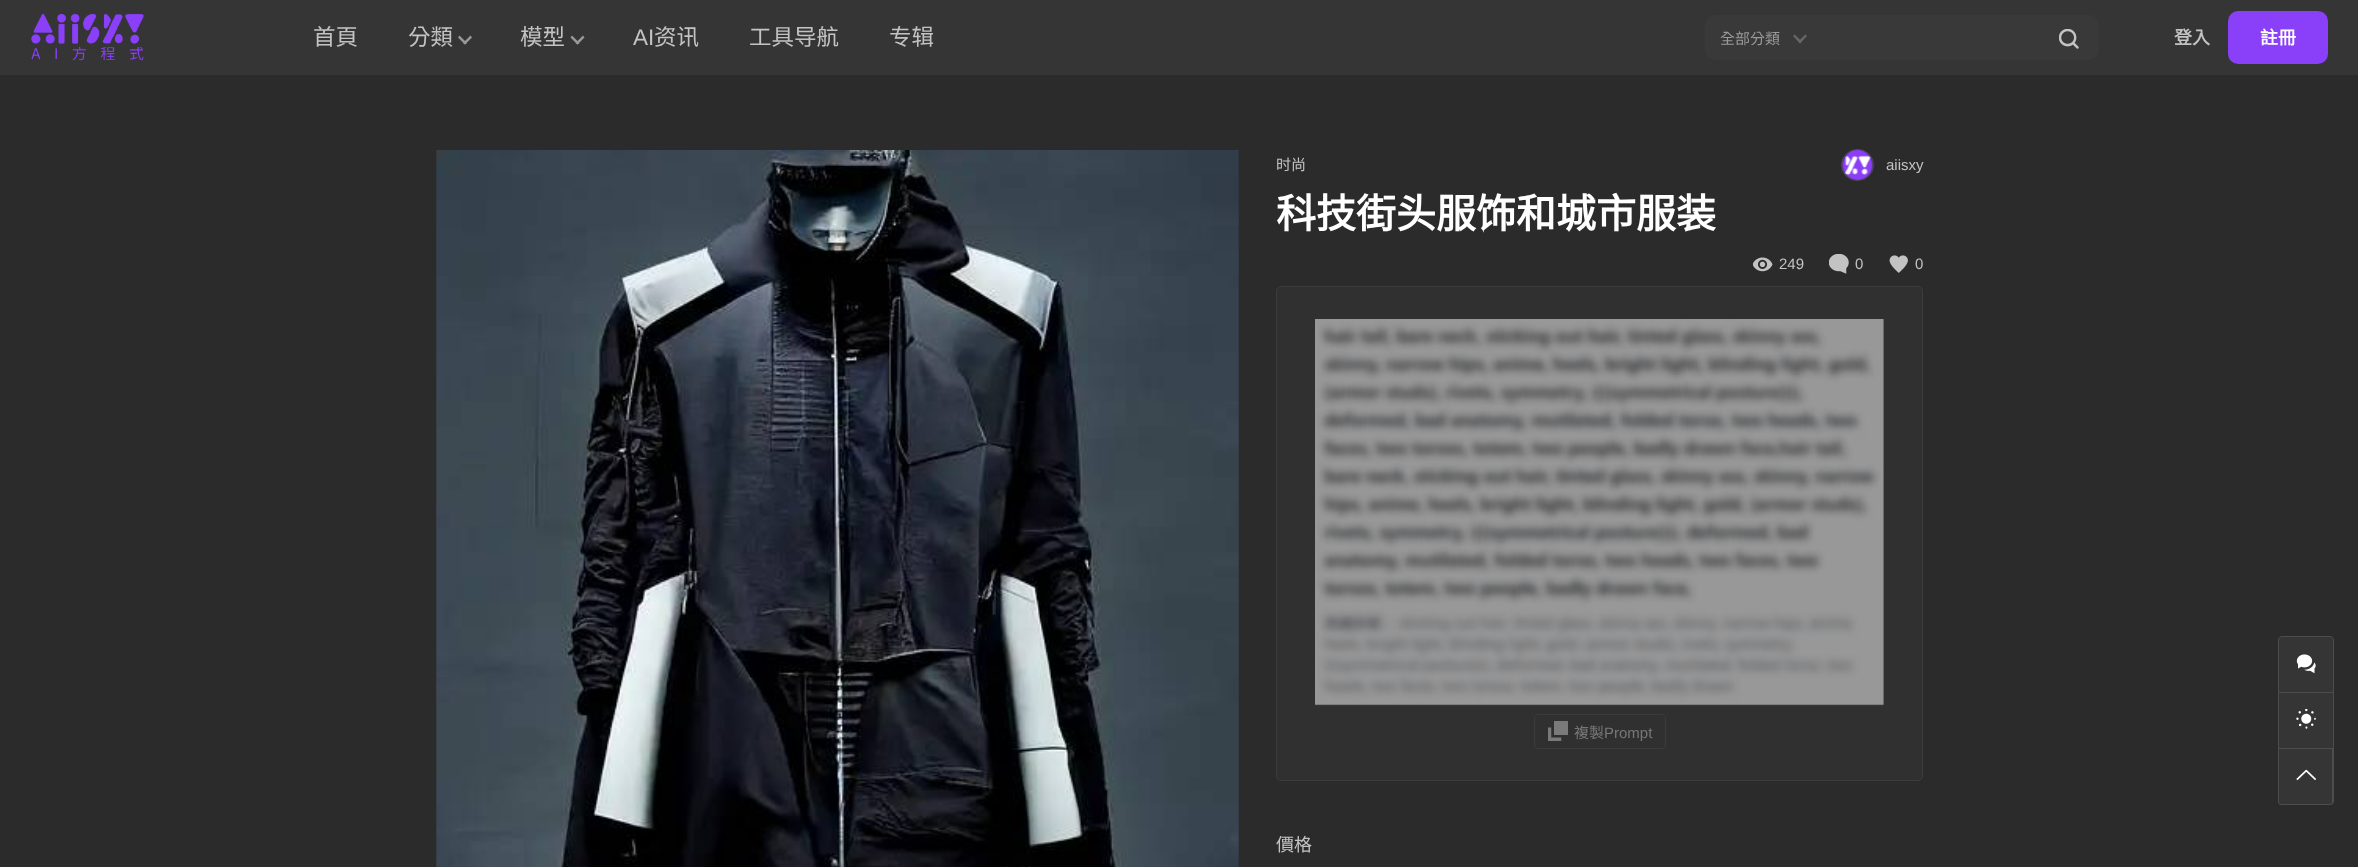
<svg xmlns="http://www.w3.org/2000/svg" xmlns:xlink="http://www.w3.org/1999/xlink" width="2358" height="867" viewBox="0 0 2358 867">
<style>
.cls-1{font:22.5px Noto Sans CJK TC;fill:#c3c3c3}
.cls-2{font:22.5px Liberation Sans;fill:#c3c3c3}
.cls-3{font:15px Noto Sans CJK TC;fill:#999999}
.cls-4{font:bold 18px Noto Sans CJK TC;fill:#c3c3c3}
.cls-5{font:bold 18px Noto Sans CJK TC;fill:#ffffff}
.cls-6{font:15px Noto Sans CJK TC;fill:#c3c3c3}
.cls-7{font:15px Liberation Sans;fill:#c3c3c3}
.cls-8{font:bold 40px Noto Sans CJK TC;fill:#ffffff}
.cls-9{font:15px Noto Sans CJK TC;fill:#777777}
.cls-10{font:15px Liberation Sans;fill:#777777}
.cls-11{font:18px Noto Sans CJK TC;fill:#c3c3c3}
</style>
<rect width="100%" height="100%" fill="#2b2b2b"/>
<rect fill="#353535" x="0" y="0" width="2358" height="75"/>
<image xlink:href="image0.png" x="31" y="13" width="113" height="48"/>
<path fill="#999999" d="M463 43L470.5 35.5L472 37.5L465 44.5Z"/>
<path fill="#999999" d="M458 37.5L459.5 35.5L467 43L465 44.5Z"/>
<path fill="#999999" d="M575.5 43L583 35.5L584.5 37.5L577.5 44.5Z"/>
<path fill="#999999" d="M570.5 37.5L572 35.5L579.5 43L577.5 44.5Z"/>
<rect fill="#393939" x="1705" y="15" width="394" height="45" rx="10"/>
<path fill="#666666" d="M1805.5 34.5L1807 36L1800 43.5L1798 41.5Z"/>
<path fill="#666666" d="M1794.5 34.5L1802 41.5L1800 43.5L1793 36Z"/>
<image xlink:href="image1.png" x="2059" y="29" width="20" height="20"/>
<rect fill="#8a3ff8" x="2228" y="11" width="100" height="53" rx="10"/>
<image xlink:href="image2.png" x="436" y="150" width="803" height="717"/>
<rect fill="none" stroke="#4d4d4d" x="1841.5" y="149.5" width="32" height="31" rx="15.5"/>
<image xlink:href="image3.png" x="1842" y="150" width="31" height="30"/>
<image xlink:href="image4.png" x="1753" y="257" width="20" height="15"/>
<image xlink:href="image5.png" x="1829" y="254" width="20" height="20"/>
<image xlink:href="image6.png" x="1889" y="255" width="19" height="18"/>
<rect fill="#303030" stroke="#3c3c3c" x="1276.5" y="286.5" width="646" height="494" rx="4.5"/>
<image xlink:href="image7.png" x="1315" y="319" width="569" height="387"/>
<rect fill="none" stroke="#3c3c3c" x="1534.5" y="714.5" width="131" height="34" rx="3.5"/>
<image xlink:href="image8.png" x="1548" y="721" width="20" height="20"/>
<path fill="#353535" stroke="#4d4d4d" d="M2282 636.5H2330C2332 636.5 2333.5 638 2333.5 640V692.5H2278.5V640C2278.5 638 2280 636.5 2282 636.5Z"/>
<image xlink:href="image9.png" x="2296" y="654" width="20" height="20"/>
<rect fill="#353535" x="2279" y="693" width="54" height="55"/>
<rect fill="#4d4d4d" x="2333" y="693" width="1" height="56"/>
<rect fill="#4d4d4d" x="2278" y="748" width="56" height="1"/>
<rect fill="#4d4d4d" x="2278" y="693" width="1" height="56"/>
<image xlink:href="image10.png" x="2296" y="709" width="20" height="20"/>
<path fill="#353535" d="M2278 749H2334V801C2334 803 2332 805 2330 805H2282C2280 805 2278 803 2278 801Z"/>
<path fill="#4d4d4d" fill-rule="evenodd" d="M2278 749H2334V801C2334 803 2332 805 2330 805H2281C2279 805 2278 803 2278 801ZM2279 749H2332V802V803L2330 804H2281L2279 803V801Z"/>
<image xlink:href="image11.png" x="2296" y="769" width="20" height="12"/>
<text class="cls-1" x="313" y="45">首頁</text>
<text class="cls-1" x="408" y="45">分類</text>
<text class="cls-1" x="520" y="45">模型</text>
<text class="cls-2" x="633" y="45">AI</text>
<text class="cls-1" x="654" y="45">资讯</text>
<text class="cls-1" x="749" y="45">工具导航</text>
<text class="cls-1" x="889" y="45">专辑</text>
<text class="cls-3" x="1720" y="44">全部分類</text>
<text class="cls-4" x="2174" y="44">登入</text>
<text class="cls-5" x="2260" y="44">註冊</text>
<text class="cls-6" x="1276" y="170">时尚</text>
<text class="cls-7" x="1886" y="170">aiisxy</text>
<text class="cls-8" x="1276" y="228">科技街头服饰和城市服装</text>
<text class="cls-7" x="1779" y="269">249</text>
<text class="cls-7" x="1855" y="269">0</text>
<text class="cls-7" x="1915" y="269">0</text>
<text class="cls-9" x="1574" y="738">複製</text>
<text class="cls-10" x="1604" y="738">Prompt</text>
<text class="cls-11" x="1276" y="851">價格</text>
</svg>
